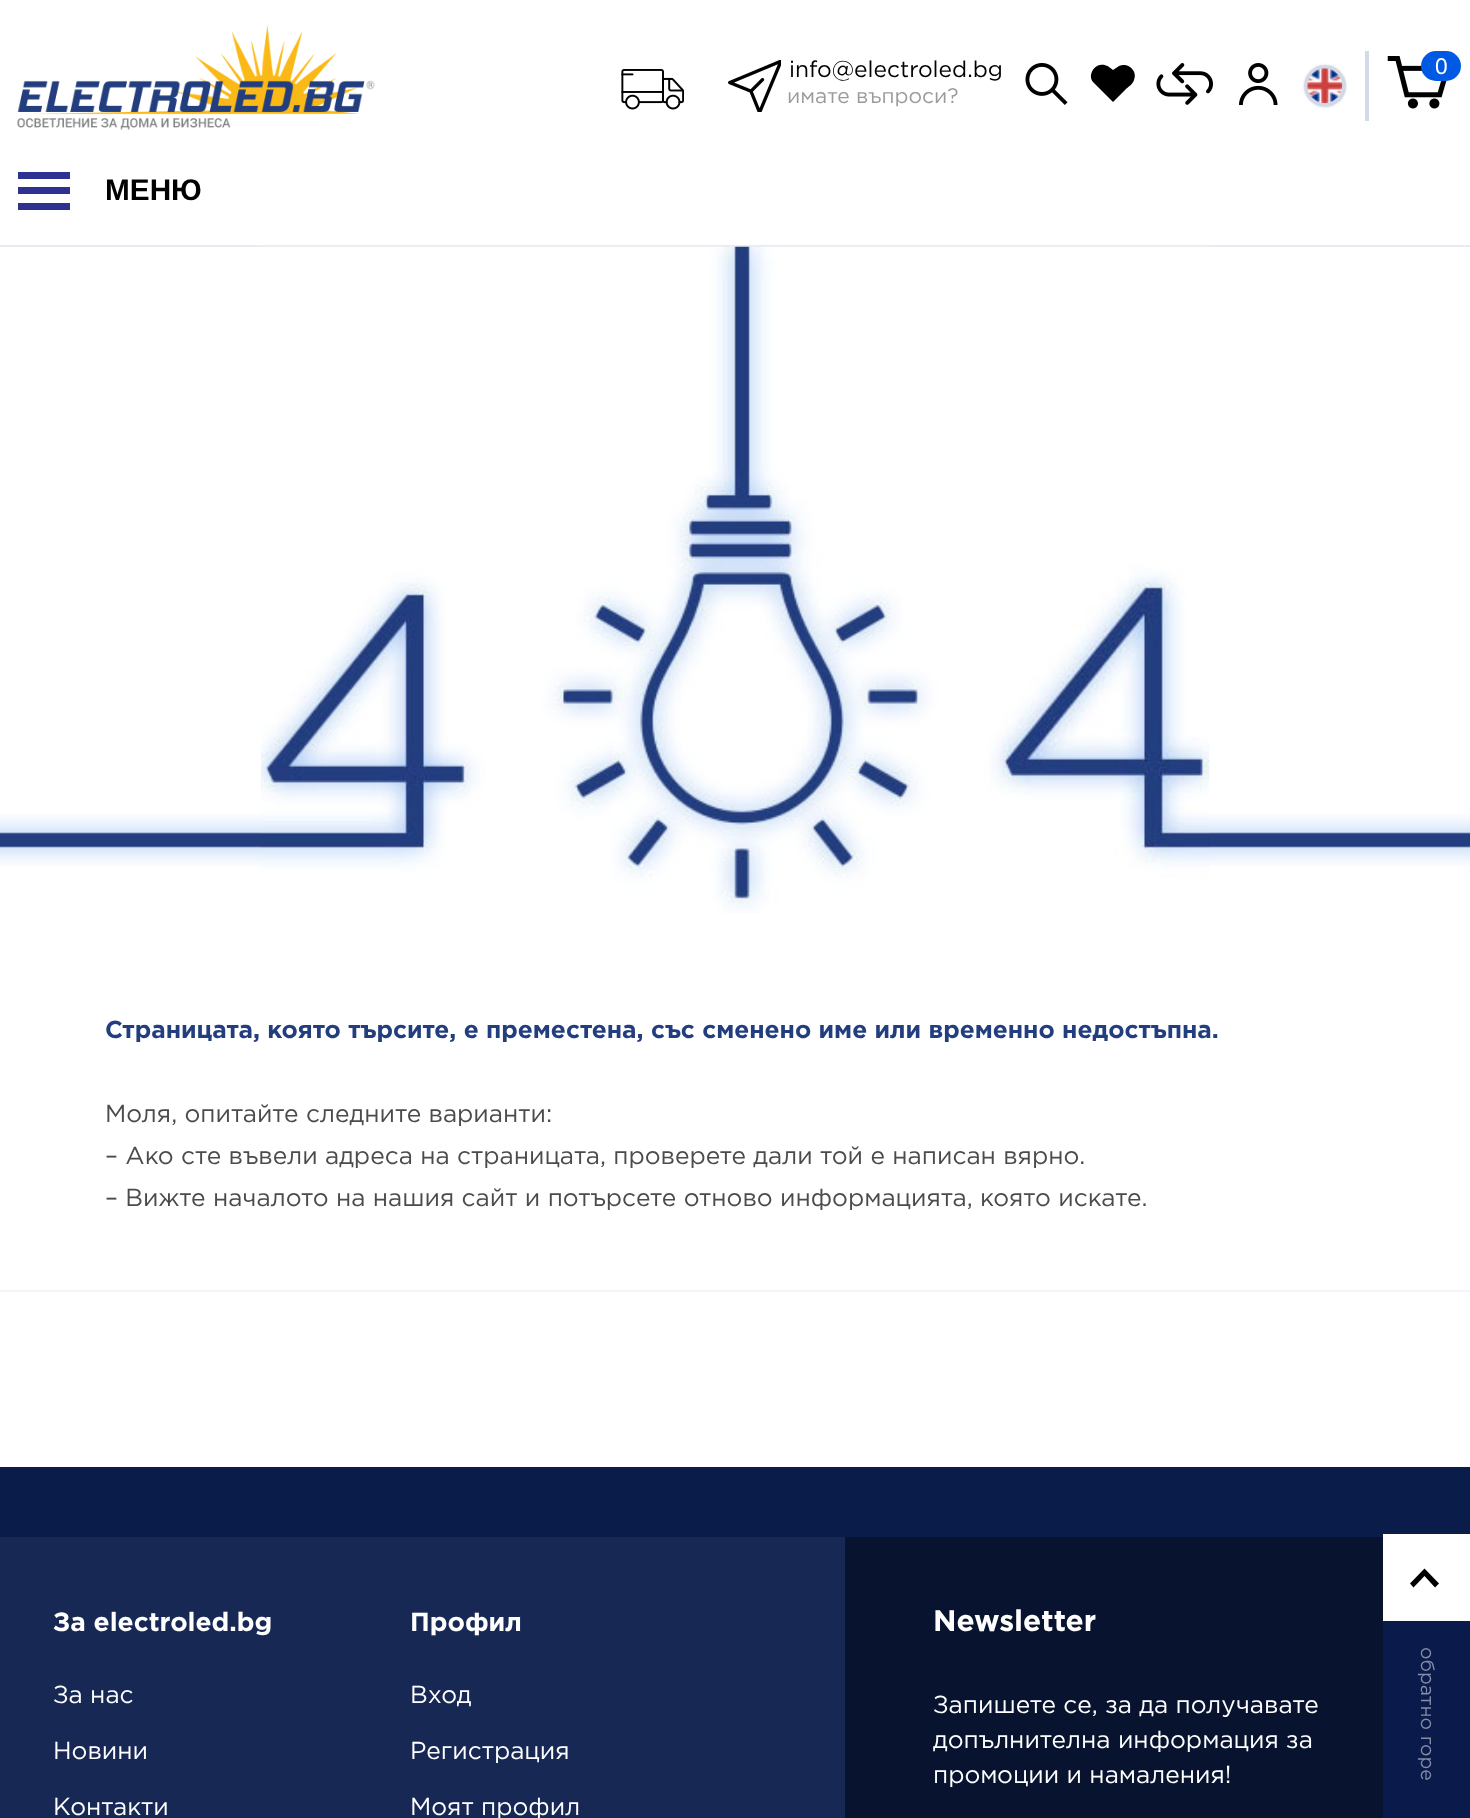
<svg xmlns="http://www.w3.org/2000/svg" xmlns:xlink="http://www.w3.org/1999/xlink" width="1470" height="1818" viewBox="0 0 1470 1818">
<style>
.cls-1{font:22.75px Gotham;fill:#000000}
.cls-2{font:21px Gotham;fill:#9b9b9b}
.cls-3{font:22.75px Liberation Sans;fill:#ffffff}
.cls-4{font:bold 29.75px Liberation Sans;fill:#000000}
.cls-5{font:bold 24.5px Gotham;fill:#233e7f}
.cls-6{font:24.5px Gotham;fill:#4b4b4b}
.cls-7{font:bold 26.25px Gotham;fill:#ffffff}
.cls-8{font:24.5px Gotham;fill:#ffffff}
.cls-9{font:bold 29.75px Gotham;fill:#ffffff}
.cls-10{font:19.25px Gotham;fill:#848da5}
</style>
<defs>
<clipPath id="clip1"><path d="M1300 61H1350V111H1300ZM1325 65C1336.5 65 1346 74.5 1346 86C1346 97.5 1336.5 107 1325 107C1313.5 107 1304 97.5 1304 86C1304 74.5 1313.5 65 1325 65Z" clip-rule="evenodd"/></clipPath>
</defs>
<rect width="100%" height="100%" fill="#ffffff"/>
<image xlink:href="image0.png" x="17" y="24" width="358" height="106"/>
<image xlink:href="image1.png" x="621" y="69" width="63" height="41"/>
<image xlink:href="image2.png" x="728" y="60" width="53" height="52"/>
<image xlink:href="image3.png" x="1025" y="63" width="43" height="42"/>
<path fill="#000000" d="M1113 102L1125 90C1128 87 1133 84 1134 80C1138 71 1128 62 1119 66C1117 67 1115 69 1113 70C1109 67 1106 64 1100 65C1093 66 1088 76 1093 82Z"/>
<image xlink:href="image4.png" x="1156" y="63" width="57" height="42"/>
<image xlink:href="image5.png" x="1239" y="63" width="39" height="42"/>
<g clip-path="url(#clip1)">
<rect fill="#a7b2cc" fill-opacity="0.5" filter="blur(1px)" x="1304" y="65" width="42" height="42" rx="21"/>
</g>
<circle fill="none" stroke="#a7b2cc" stroke-opacity="0.5" stroke-width="4" cx="1325" cy="86" r="19"/>
<image xlink:href="image6.png" x="1307" y="68" width="36" height="36"/>
<rect fill="#d3d9e6" x="1365" y="51" width="4" height="70"/>
<image xlink:href="image7.png" x="1387" y="56" width="60" height="53"/>
<rect fill="#0059e2" x="1421" y="51" width="40" height="30" rx="15"/>
<rect fill="#2e3192" x="18" y="187" width="52" height="7"/>
<rect fill="#2e3192" x="18" y="203" width="52" height="7"/>
<rect fill="#2e3192" x="18" y="172" width="52" height="7"/>
<rect fill="#e9ebf2" x="0" y="245" width="1470" height="2"/>
<rect fill="#f4f5f9" x="0" y="1290" width="1470" height="2"/>
<image xlink:href="image8.png" x="0" y="814" width="1470" height="52"/>
<image xlink:href="image9.png" x="260" y="246" width="950" height="667"/>
<rect fill="#0a1c4a" x="0" y="1467" width="1470" height="70"/>
<rect fill="#172854" x="0" y="1537" width="845" height="281"/>
<rect fill="#07132f" x="845" y="1537" width="538" height="281"/>
<rect fill="#091a4b" x="1383" y="1621" width="87" height="197"/>
<rect fill="#ffffff" x="1383" y="1534" width="87" height="3"/>
<path fill="#000000" fill-rule="evenodd" d="M1424.5 1568.5L1439 1583.5L1435 1587.5L1424.5 1576L1413.5 1587.5L1410 1583.5L1424.5 1568.5"/>
<text class="cls-1" x="789" y="77">info@electroled.bg</text>
<text class="cls-2" x="787" y="103">имате въпроси?</text>
<text class="cls-3" x="1435" y="74">0</text>
<text class="cls-4" x="105" y="200">МЕНЮ</text>
<text class="cls-5" x="105" y="1038">Страницата, която търсите, е преместена, със сменено име или временно недостъпна.</text>
<text class="cls-6"><tspan x="105" y="1122">Моля, опитайте следните варианти:</tspan><tspan x="105" y="1164">– Ако сте въвели адреса на страницата, проверете дали той е написан вярно.</tspan><tspan x="105" y="1206">– Вижте началото на нашия сайт и потърсете отново информацията, която искате.</tspan></text>
<text class="cls-7" x="53" y="1631">За electroled.bg</text>
<text class="cls-8" x="53" y="1703">За нас</text>
<text class="cls-8" x="53" y="1759">Новини</text>
<text class="cls-8" x="53" y="1815">Контакти</text>
<text class="cls-7" x="410" y="1631">Профил</text>
<text class="cls-8" x="410" y="1703">Вход</text>
<text class="cls-8" x="410" y="1759">Регистрация</text>
<text class="cls-8" x="410" y="1815">Моят профил</text>
<text class="cls-9" x="933" y="1631">Newsletter</text>
<text class="cls-8"><tspan x="933" y="1713">Запишете се, за да получавате</tspan><tspan x="933" y="1748">допълнителна информация за</tspan><tspan x="933" y="1783">промоции и намаления!</tspan></text>
<text class="cls-10" x="1421" y="1647" transform="rotate(90 1421 1647)">обратно горе</text>
</svg>
